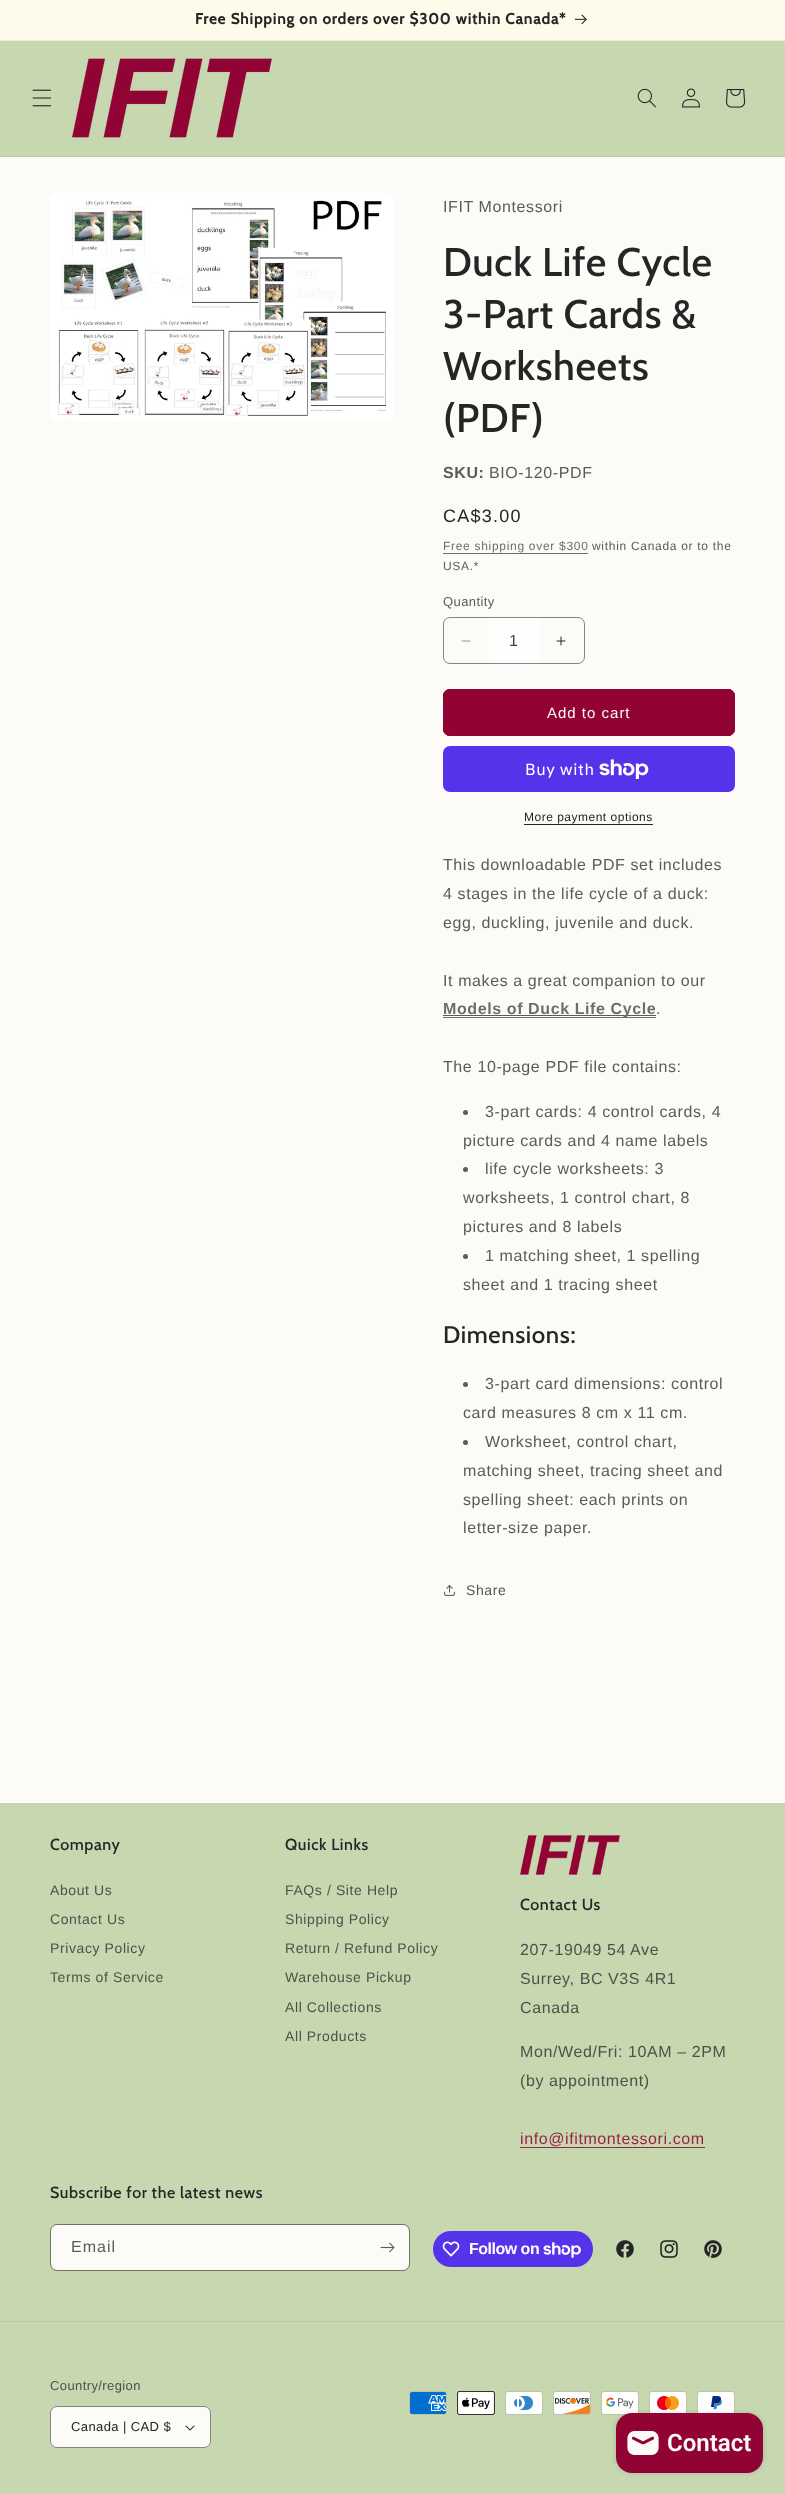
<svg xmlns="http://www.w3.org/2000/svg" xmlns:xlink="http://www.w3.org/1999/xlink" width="785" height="2494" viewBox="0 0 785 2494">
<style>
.cls-1{font:bold 15px Cabin;letter-spacing:1px;fill:#252525}
.cls-2{font:16px Liberation Sans;letter-spacing:0.6px;fill:#5b5b5a}
.cls-3{font:500 40px Cabin;letter-spacing:0.6px;fill:#252525}
.cls-4{font:bold 16px Liberation Sans;letter-spacing:0.6px;fill:#5b5b5a}
.cls-5{font:18px Liberation Sans;letter-spacing:1.25px;fill:#252525}
.cls-6{font:12px Liberation Sans;letter-spacing:0.7px;fill:#6a6f6d}
.cls-7{font:12px Liberation Sans;letter-spacing:0.7px;fill:#5b5b5a}
.cls-8{font:13px Liberation Sans;letter-spacing:0.4px;fill:#5b5b5a}
.cls-9{font:16px Liberation Sans;fill:#454545}
.cls-10{font:15px Liberation Sans;letter-spacing:1px;fill:#fcfbf8}
.cls-11{font:16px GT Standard;letter-spacing:0.6px;fill:#ffffff}
.cls-12{font:12px Liberation Sans;letter-spacing:0.5px;fill:#252525}
.cls-13{font:bold 16px Liberation Sans;letter-spacing:0.6px;fill:#6a6f6d}
.cls-14{font:500 24px Cabin;letter-spacing:0.6px;fill:#252525}
.cls-15{font:14px Liberation Sans;letter-spacing:0.6px;fill:#505655}
.cls-16{font:500 16px Cabin;letter-spacing:0.6px;fill:#252525}
.cls-17{font:14px Liberation Sans;letter-spacing:0.6px;fill:#4e5248}
.cls-18{font:16px Liberation Sans;letter-spacing:0.6px;fill:#4e5248}
.cls-19{font:16px Liberation Sans;letter-spacing:0.6px;fill:#992347}
.cls-20{font:16px Liberation Sans;letter-spacing:1px;fill:#5b5b5a}
.cls-21{font:bold 16px Liberation Sans;letter-spacing:-0.5px;fill:#ffffff}
.cls-22{font:13px Liberation Sans;letter-spacing:0.4px;fill:#4e5248}
.cls-23{font:13px Liberation Sans;letter-spacing:0.4px;fill:#252525}
.cls-24{font:600 24px Roboto;fill:#fcfbf8}
</style>
<rect width="100%" height="100%" fill="#fcfbf8"/>
<rect fill="#fffbeb" x="0" y="0" width="785" height="40"/>
<rect fill="#eeeadb" x="0" y="40" width="785" height="1"/>
<image xlink:href="image0.png" x="575" y="14" width="12" height="11"/>
<rect fill="#c7d7b0" x="0" y="41" width="785" height="115"/>
<rect fill="#bac9a5" x="0" y="156" width="785" height="1"/>
<image xlink:href="image1.png" x="32" y="89" width="20" height="18"/>
<image xlink:href="image2.png" x="72" y="58" width="200" height="80"/>
<image xlink:href="image3.png" x="637" y="88" width="19" height="20"/>
<image xlink:href="image4.png" x="682" y="88" width="18" height="20"/>
<image xlink:href="image5.png" x="726" y="89" width="20" height="19"/>
<image xlink:href="image6.png" x="50" y="193" width="343" height="228"/>
<rect fill="#6a6f6d" x="443" y="553" width="145" height="1"/>
<image xlink:href="image7.png" x="461" y="640" width="10" height="2"/>
<rect fill="#fffefe" x="489" y="617" width="50" height="47"/>
<image xlink:href="image8.png" x="556" y="636" width="10" height="10"/>
<rect fill="none" stroke="#252525" stroke-opacity="0.55" x="443.5" y="617.5" width="141" height="46" rx="6.5"/>
<rect fill="#910335" x="443" y="689" width="292" height="47" rx="7"/>
<rect fill="none" stroke="#910335" x="443.5" y="689.5" width="291" height="46" rx="6.5"/>
<rect fill="none" stroke="#910335" x="443.5" y="689.5" width="291" height="46" rx="6.5"/>
<rect fill="#5433eb" x="443" y="746" width="292" height="46" rx="7"/>
<image xlink:href="image9.png" x="599" y="759" width="50" height="20"/>
<rect fill="#252525" x="524" y="824" width="129" height="1"/>
<rect fill="#6a6f6d" x="443" y="1017" width="213" height="1"/>
<rect fill="#5b5b5a" x="443" y="1015" width="213" height="1"/>
<circle fill="#5b5b5a" cx="465.5" cy="1112.5" r="2.5"/>
<circle fill="#5b5b5a" cx="465.5" cy="1169.5" r="2.5"/>
<circle fill="#5b5b5a" cx="465.5" cy="1256.5" r="2.5"/>
<circle fill="#5b5b5a" cx="465.5" cy="1384.5" r="2.5"/>
<circle fill="#5b5b5a" cx="465.5" cy="1442.5" r="2.5"/>
<image xlink:href="image10.png" x="444" y="1585" width="11" height="11"/>
<rect fill="#c7d7b0" x="0" y="1803" width="785" height="691"/>
<image xlink:href="image11.png" x="520" y="1835" width="100" height="40"/>
<rect fill="#992347" x="520" y="2147" width="185" height="1"/>
<rect fill="#fcfbf8" x="51" y="2225" width="358" height="45" rx="6"/>
<rect fill="none" stroke="#252525" stroke-opacity="0.55" x="50.5" y="2224.5" width="359" height="46" rx="6.5"/>
<image xlink:href="image12.png" x="380" y="2242" width="15" height="11"/>
<rect fill="#5433eb" x="433" y="2231" width="160" height="36" rx="18"/>
<image xlink:href="image13.png" x="442" y="2241" width="18" height="16"/>
<image xlink:href="image14.png" x="543" y="2242" width="38" height="16"/>
<image xlink:href="image15.png" x="616" y="2240" width="18" height="18"/>
<image xlink:href="image16.png" x="660" y="2240" width="18" height="18"/>
<image xlink:href="image17.png" x="704" y="2240" width="18" height="18"/>
<rect fill="#bac9a5" x="0" y="2321" width="785" height="1"/>
<rect fill="#fcfbf8" x="50" y="2406" width="161" height="42" rx="7"/>
<image xlink:href="image18.png" x="185" y="2425" width="10" height="6"/>
<rect fill="none" stroke="#252525" stroke-opacity="0.55" x="50.5" y="2406.5" width="160" height="41" rx="6.5"/>
<image xlink:href="image19.png" x="409" y="2391" width="38" height="24"/>
<image xlink:href="image20.png" x="457" y="2391" width="38" height="24"/>
<image xlink:href="image21.png" x="505" y="2391" width="38" height="24"/>
<image xlink:href="image22.png" x="553" y="2391" width="38" height="24"/>
<image xlink:href="image23.png" x="601" y="2391" width="38" height="24"/>
<image xlink:href="image24.png" x="649" y="2391" width="38" height="22"/>
<image xlink:href="image25.png" x="697" y="2391" width="38" height="22"/>
<rect fill="#000000" fill-opacity="0.15" filter="blur(2.5px)" x="616" y="2413" width="147" height="60" rx="16"/>
<rect fill="#910335" x="616" y="2413" width="147" height="60" rx="16"/>
<image xlink:href="image26.png" x="627" y="2431" width="32" height="24"/>
<text class="cls-1" x="195" y="24">Free Shipping on orders over $300 within Canada*</text>
<text class="cls-2" x="443" y="212">IFIT Montessori</text>
<text class="cls-3"><tspan x="443" y="276">Duck Life Cycle</tspan><tspan x="443" y="328">3-Part Cards &amp;</tspan><tspan x="443" y="380">Worksheets</tspan><tspan x="443" y="432">(PDF)</tspan></text>
<text class="cls-4" x="443" y="478">SKU:</text>
<text class="cls-2" x="489" y="478">BIO-120-PDF</text>
<text class="cls-5" x="443" y="522">CA$3.00</text>
<text class="cls-6" x="443" y="550">Free shipping over $300</text>
<text class="cls-7" x="592" y="550">within Canada or to the</text>
<text class="cls-7" x="443" y="570">USA.*</text>
<text class="cls-8" x="443" y="606">Quantity</text>
<text class="cls-9" x="509" y="646">1</text>
<text class="cls-10" x="547" y="718">Add to cart</text>
<text class="cls-11" x="525" y="775">Buy with</text>
<text class="cls-12" x="524" y="821">More payment options</text>
<text class="cls-2"><tspan x="443" y="870">This downloadable PDF set includes</tspan><tspan x="443" y="899">4 stages in the life cycle of a duck:</tspan><tspan x="443" y="928">egg, duckling, juvenile and duck.</tspan></text>
<text class="cls-2" x="443" y="986">It makes a great companion to our</text>
<text class="cls-13" x="443" y="1014">Models of Duck Life Cycle</text>
<text class="cls-2" x="656" y="1014">.</text>
<text class="cls-2" x="443" y="1072">The 10-page PDF file contains:</text>
<text class="cls-2" x="485" y="1117">3-part cards: 4 control cards, 4</text>
<text class="cls-2" x="463" y="1146">picture cards and 4 name labels</text>
<text class="cls-2" x="485" y="1174">life cycle worksheets: 3</text>
<text class="cls-2"><tspan x="463" y="1203">worksheets, 1 control chart, 8</tspan><tspan x="463" y="1232">pictures and 8 labels</tspan></text>
<text class="cls-2" x="485" y="1261">1 matching sheet, 1 spelling</text>
<text class="cls-2" x="463" y="1290">sheet and 1 tracing sheet</text>
<text class="cls-14" x="443" y="1343">Dimensions:</text>
<text class="cls-2" x="485" y="1389">3-part card dimensions: control</text>
<text class="cls-2" x="463" y="1418">card measures 8 cm x 11 cm.</text>
<text class="cls-2" x="485" y="1447">Worksheet, control chart,</text>
<text class="cls-2"><tspan x="463" y="1476">matching sheet, tracing sheet and</tspan><tspan x="463" y="1505">spelling sheet: each prints on</tspan><tspan x="463" y="1533">letter-size paper.</tspan></text>
<text class="cls-15" x="466" y="1595">Share</text>
<text class="cls-16" x="50" y="1850">Company</text>
<text class="cls-17" x="50" y="1895">About Us</text>
<text class="cls-17" x="50" y="1924">Contact Us</text>
<text class="cls-17" x="50" y="1953">Privacy Policy</text>
<text class="cls-17" x="50" y="1982">Terms of Service</text>
<text class="cls-16" x="285" y="1850">Quick Links</text>
<text class="cls-17" x="285" y="1895">FAQs / Site Help</text>
<text class="cls-17" x="285" y="1924">Shipping Policy</text>
<text class="cls-17" x="285" y="1953">Return / Refund Policy</text>
<text class="cls-17" x="285" y="1982">Warehouse Pickup</text>
<text class="cls-17" x="285" y="2012">All Collections</text>
<text class="cls-17" x="285" y="2041">All Products</text>
<text class="cls-16" x="520" y="1910">Contact Us</text>
<text class="cls-18"><tspan x="520" y="1955">207-19049 54 Ave</tspan><tspan x="520" y="1984">Surrey, BC V3S 4R1</tspan><tspan x="520" y="2013">Canada</tspan></text>
<text class="cls-18"><tspan x="520" y="2057">Mon/Wed/Fri: 10AM – 2PM</tspan><tspan x="520" y="2086">(by appointment)</tspan></text>
<text class="cls-19" x="520" y="2144">info@ifitmontessori.com</text>
<text class="cls-16" x="50" y="2198">Subscribe for the latest news</text>
<text class="cls-20" x="71" y="2252">Email</text>
<text class="cls-21" x="469" y="2254">Follow on</text>
<text class="cls-22" x="50" y="2390">Country/region</text>
<text class="cls-23" x="71" y="2431">Canada | CAD $</text>
<text class="cls-24" x="667" y="2451">Contact</text>
</svg>
